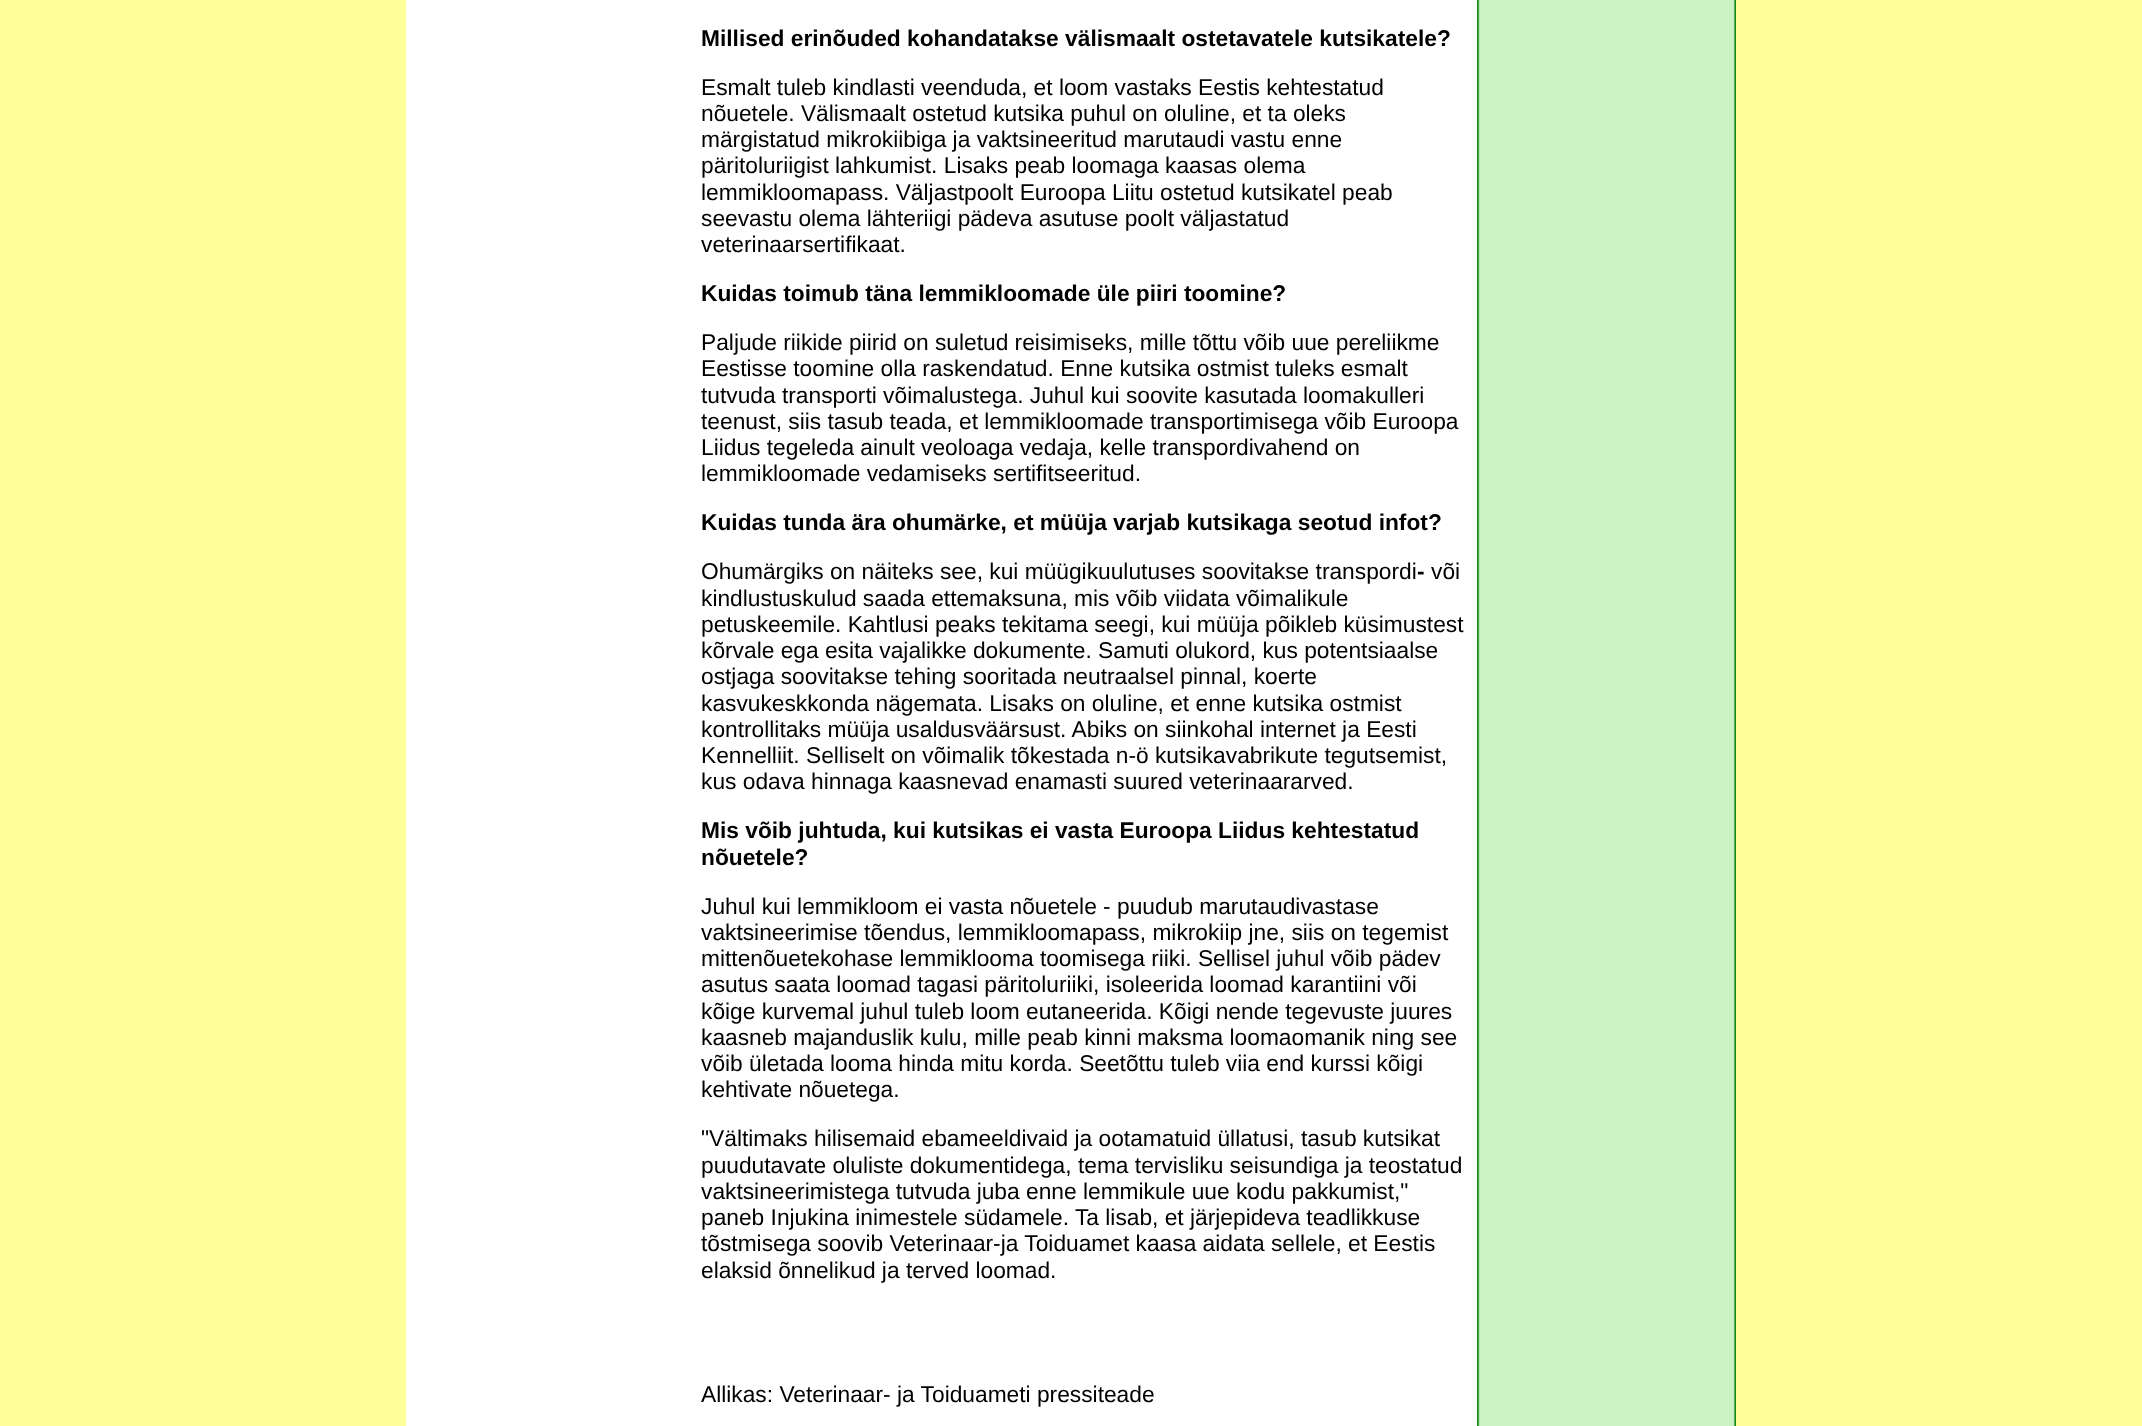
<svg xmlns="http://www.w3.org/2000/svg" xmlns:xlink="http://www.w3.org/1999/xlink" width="2142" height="1426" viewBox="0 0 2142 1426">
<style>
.cls-1{font:bold 22.75px Liberation Sans;fill:#000000}
.cls-2{font:22.75px Liberation Sans;fill:#000000}
</style>
<rect width="100%" height="100%" fill="#ffff99"/>
<rect fill="#ffffff" x="406" y="0" width="1071" height="1426"/>
<image xlink:href="image0.png" x="1477" y="0" width="259" height="1426"/>
<text class="cls-1" x="701" y="46">Millised erinõuded kohandatakse välismaalt ostetavatele kutsikatele?</text>
<text class="cls-2"><tspan x="701" y="95">Esmalt tuleb kindlasti veenduda, et loom vastaks Eestis kehtestatud</tspan><tspan x="701" y="121">nõuetele. Välismaalt ostetud kutsika puhul on oluline, et ta oleks</tspan><tspan x="701" y="147">märgistatud mikrokiibiga ja vaktsineeritud marutaudi vastu enne</tspan><tspan x="701" y="173">päritoluriigist lahkumist. Lisaks peab loomaga kaasas olema</tspan><tspan x="701" y="200">lemmikloomapass. Väljastpoolt Euroopa Liitu ostetud kutsikatel peab</tspan><tspan x="701" y="226">seevastu olema lähteriigi pädeva asutuse poolt väljastatud</tspan><tspan x="701" y="252">veterinaarsertifikaat.</tspan></text>
<text class="cls-1" x="701" y="301">Kuidas toimub täna lemmikloomade üle piiri toomine?</text>
<text class="cls-2"><tspan x="701" y="350">Paljude riikide piirid on suletud reisimiseks, mille tõttu võib uue pereliikme</tspan><tspan x="701" y="376">Eestisse toomine olla raskendatud. Enne kutsika ostmist tuleks esmalt</tspan><tspan x="701" y="403">tutvuda transporti võimalustega. Juhul kui soovite kasutada loomakulleri</tspan><tspan x="701" y="429">teenust, siis tasub teada, et lemmikloomade transportimisega võib Euroopa</tspan><tspan x="701" y="455">Liidus tegeleda ainult veoloaga vedaja, kelle transpordivahend on</tspan><tspan x="701" y="481">lemmikloomade vedamiseks sertifitseeritud.</tspan></text>
<text class="cls-1" x="701" y="530">Kuidas tunda ära ohumärke, et müüja varjab kutsikaga seotud infot?</text>
<text class="cls-2" x="701" y="579">Ohumärgiks on näiteks see, kui müügikuulutuses soovitakse transpordi</text>
<text class="cls-1" x="1417" y="579">-</text>
<text class="cls-2" x="1431" y="579">või</text>
<text class="cls-2"><tspan x="701" y="606">kindlustuskulud saada ettemaksuna, mis võib viidata võimalikule</tspan><tspan x="701" y="632">petuskeemile. Kahtlusi peaks tekitama seegi, kui müüja põikleb küsimustest</tspan><tspan x="701" y="658">kõrvale ega esita vajalikke dokumente. Samuti olukord, kus potentsiaalse</tspan><tspan x="701" y="684">ostjaga soovitakse tehing sooritada neutraalsel pinnal, koerte</tspan><tspan x="701" y="711">kasvukeskkonda nägemata. Lisaks on oluline, et enne kutsika ostmist</tspan><tspan x="701" y="737">kontrollitaks müüja usaldusväärsust. Abiks on siinkohal internet ja Eesti</tspan><tspan x="701" y="763">Kennelliit. Selliselt on võimalik tõkestada n-ö kutsikavabrikute tegutsemist,</tspan><tspan x="701" y="789">kus odava hinnaga kaasnevad enamasti suured veterinaararved.</tspan></text>
<text class="cls-1"><tspan x="701" y="838">Mis võib juhtuda, kui kutsikas ei vasta Euroopa Liidus kehtestatud</tspan><tspan x="701" y="865">nõuetele?</tspan></text>
<text class="cls-2"><tspan x="701" y="914">Juhul kui lemmikloom ei vasta nõuetele - puudub marutaudivastase</tspan><tspan x="701" y="940">vaktsineerimise tõendus, lemmikloomapass, mikrokiip jne, siis on tegemist</tspan><tspan x="701" y="966">mittenõuetekohase lemmiklooma toomisega riiki. Sellisel juhul võib pädev</tspan><tspan x="701" y="992">asutus saata loomad tagasi päritoluriiki, isoleerida loomad karantiini või</tspan><tspan x="701" y="1019">kõige kurvemal juhul tuleb loom eutaneerida. Kõigi nende tegevuste juures</tspan><tspan x="701" y="1045">kaasneb majanduslik kulu, mille peab kinni maksma loomaomanik ning see</tspan><tspan x="701" y="1071">võib ületada looma hinda mitu korda. Seetõttu tuleb viia end kurssi kõigi</tspan><tspan x="701" y="1097">kehtivate nõuetega.</tspan></text>
<text class="cls-2"><tspan x="701" y="1146">"Vältimaks hilisemaid ebameeldivaid ja ootamatuid üllatusi, tasub kutsikat</tspan><tspan x="701" y="1173">puudutavate oluliste dokumentidega, tema tervisliku seisundiga ja teostatud</tspan><tspan x="701" y="1199">vaktsineerimistega tutvuda juba enne lemmikule uue kodu pakkumist,"</tspan><tspan x="701" y="1225">paneb Injukina inimestele südamele. Ta lisab, et järjepideva teadlikkuse</tspan><tspan x="701" y="1251">tõstmisega soovib Veterinaar-ja Toiduamet kaasa aidata sellele, et Eestis</tspan><tspan x="701" y="1278">elaksid õnnelikud ja terved loomad.</tspan></text>
<text class="cls-2" x="701" y="1402">Allikas: Veterinaar- ja Toiduameti pressiteade</text>
</svg>
